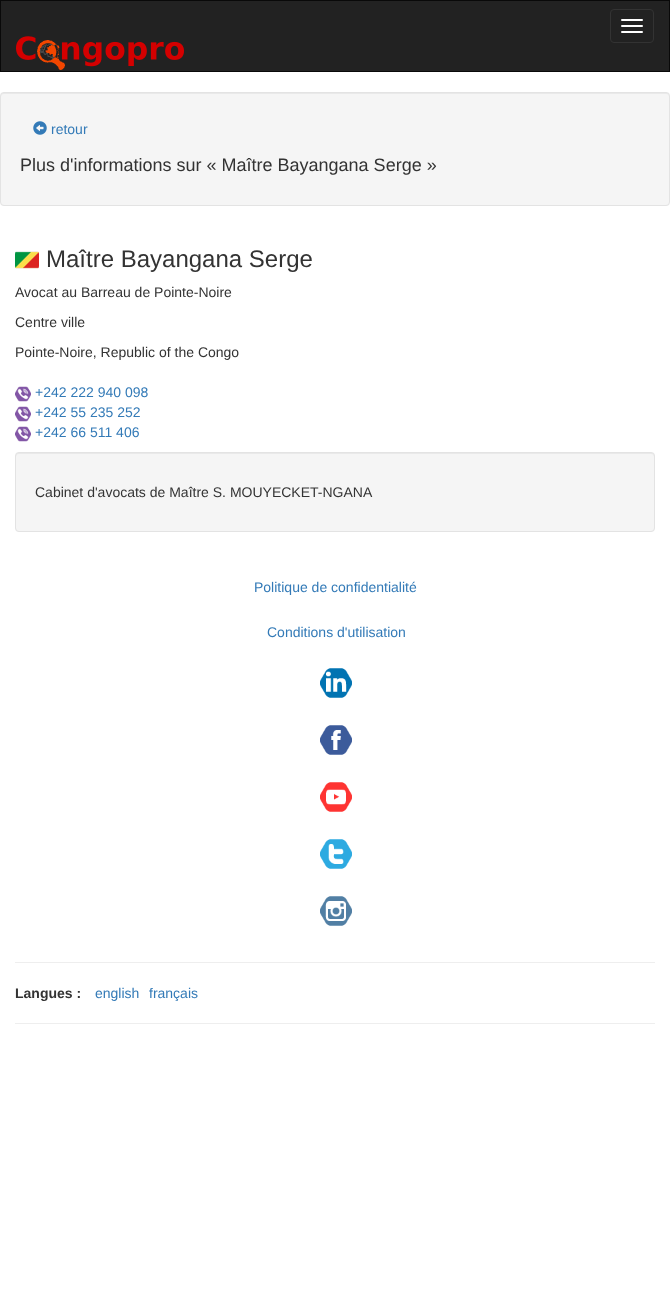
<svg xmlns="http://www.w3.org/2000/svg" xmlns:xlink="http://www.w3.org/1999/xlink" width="670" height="1290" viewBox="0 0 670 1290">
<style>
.cls-1{font:14px Liberation Sans;fill:#337ab7}
.cls-2{font:18px Liberation Sans;fill:#333333}
.cls-3{font:24px Liberation Sans;fill:#333333}
.cls-4{font:14px Liberation Sans;fill:#333333}
.cls-5{font:bold 14px Liberation Sans;fill:#333333}
</style>
<rect width="100%" height="100%" fill="#ffffff"/>
<rect fill="#222222" stroke="#090909" x="0.5" y="0.5" width="669" height="71"/>
<rect fill="none" stroke="#333333" x="610.5" y="9.5" width="43" height="33" rx="3.5"/>
<rect fill="#ffffff" x="621" y="19" width="22" height="2" rx="1"/>
<rect fill="#ffffff" x="621" y="25" width="22" height="2" rx="1"/>
<rect fill="#ffffff" x="621" y="31" width="22" height="2" rx="1"/>
<image xlink:href="image0.png" x="16" y="36" width="168" height="34"/>
<rect fill="#f5f5f5" x="0" y="92" width="670" height="114" rx="4"/>
<path fill="#e9e9e9" d="M4 94H666C668 94 669 95 669 97V96C669 94 668 93 666 93H4C2 93 1 94 1 96V97C1 95 2 94 4 94Z"/>
<rect fill="none" stroke="#e3e3e3" x="0.5" y="92.5" width="669" height="113" rx="3.5"/>
<image xlink:href="image1.png" x="33" y="121" width="14" height="14"/>
<image xlink:href="image2.png" x="15" y="251" width="24" height="18"/>
<image xlink:href="image3.png" x="15" y="386" width="16" height="16"/>
<image xlink:href="image3.png" x="15" y="406" width="16" height="16"/>
<image xlink:href="image3.png" x="15" y="426" width="16" height="16"/>
<rect fill="#f5f5f5" x="15" y="452" width="640" height="80" rx="4"/>
<path fill="#e9e9e9" d="M19 454H651C653 454 654 455 654 457V456C654 454 653 453 651 453H19C17 453 16 454 16 456V457C16 455 17 454 19 454Z"/>
<rect fill="none" stroke="#e3e3e3" x="15.5" y="452.5" width="639" height="79" rx="3.5"/>
<image xlink:href="image4.png" x="320" y="668" width="32" height="30"/>
<image xlink:href="image5.png" x="320" y="725" width="32" height="30"/>
<image xlink:href="image6.png" x="320" y="782" width="32" height="30"/>
<image xlink:href="image7.png" x="320" y="839" width="32" height="30"/>
<image xlink:href="image8.png" x="320" y="896" width="32" height="30"/>
<rect fill="#eeeeee" x="15" y="962" width="640" height="1"/>
<rect fill="#eeeeee" x="15" y="1023" width="640" height="1"/>
<text class="cls-1" x="51" y="134">retour</text>
<text class="cls-2" x="20" y="171">Plus d'informations sur « Maître Bayangana Serge »</text>
<text class="cls-3" x="46" y="267">Maître Bayangana Serge</text>
<text class="cls-4" x="15" y="297">Avocat au Barreau de Pointe-Noire</text>
<text class="cls-4" x="15" y="327">Centre ville</text>
<text class="cls-4" x="15" y="357">Pointe-Noire, Republic of the Congo</text>
<text class="cls-1"><tspan x="35" y="397">+242 222 940 098</tspan><tspan x="35" y="417">+242 55 235 252</tspan><tspan x="35" y="437">+242 66 511 406</tspan></text>
<text class="cls-4" x="35" y="497">Cabinet d'avocats de Maître S. MOUYECKET-NGANA</text>
<text class="cls-1" x="254" y="592">Politique de confidentialité</text>
<text class="cls-1" x="267" y="637">Conditions d'utilisation</text>
<text class="cls-5" x="15" y="998">Langues :</text>
<text class="cls-1" x="95" y="998">english</text>
<text class="cls-1" x="149" y="998">français</text>
</svg>
